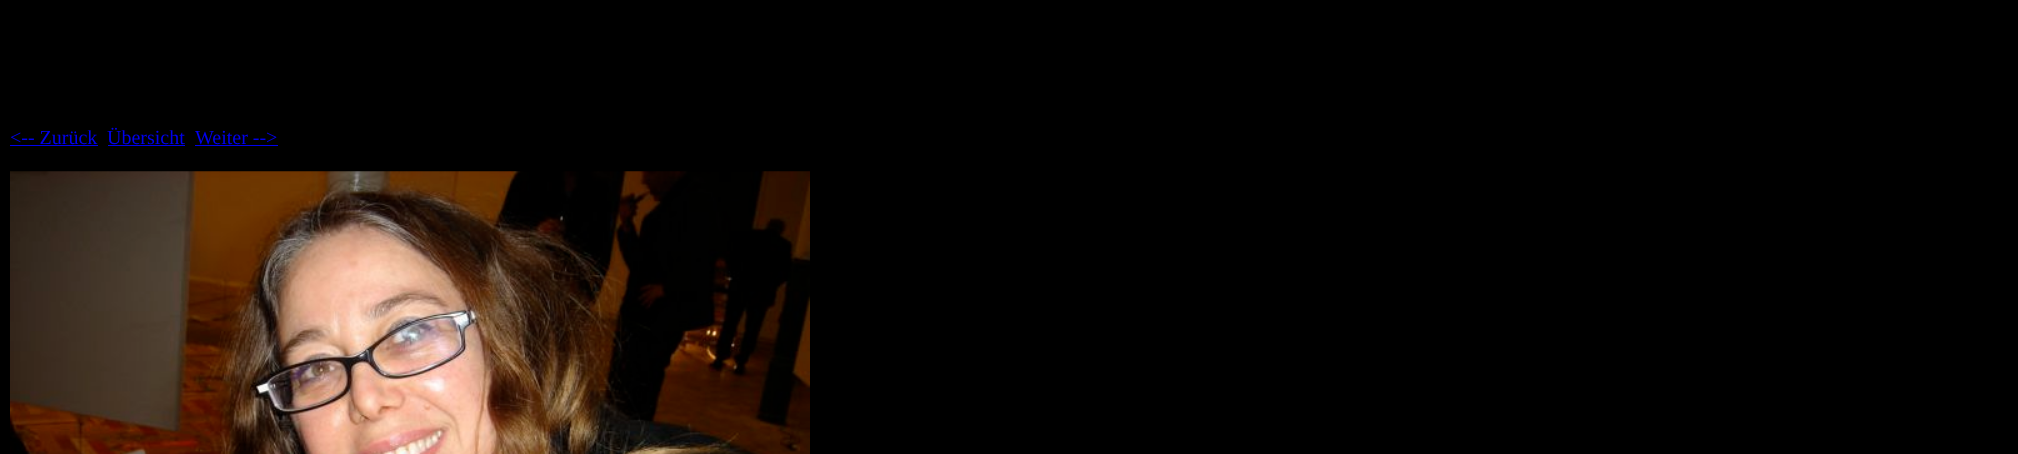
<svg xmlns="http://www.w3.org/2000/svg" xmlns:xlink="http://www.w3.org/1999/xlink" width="2018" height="454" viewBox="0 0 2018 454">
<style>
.cls-1{font:20px Liberation Serif;fill:#0000ee}
</style>
<rect width="100%" height="100%" fill="#000000"/>
<rect fill="#0000ee" x="10" y="145" width="88" height="1"/>
<rect fill="#0000ee" x="108" y="145" width="77" height="1"/>
<rect fill="#0000ee" x="195" y="145" width="83" height="1"/>
<image xlink:href="image0.png" x="10" y="171" width="800" height="283"/>
<text class="cls-1" x="10" y="144">&lt;-- Zurück</text>
<text class="cls-1" x="107" y="144">Übersicht</text>
<text class="cls-1" x="195" y="144">Weiter --&gt;</text>
</svg>
